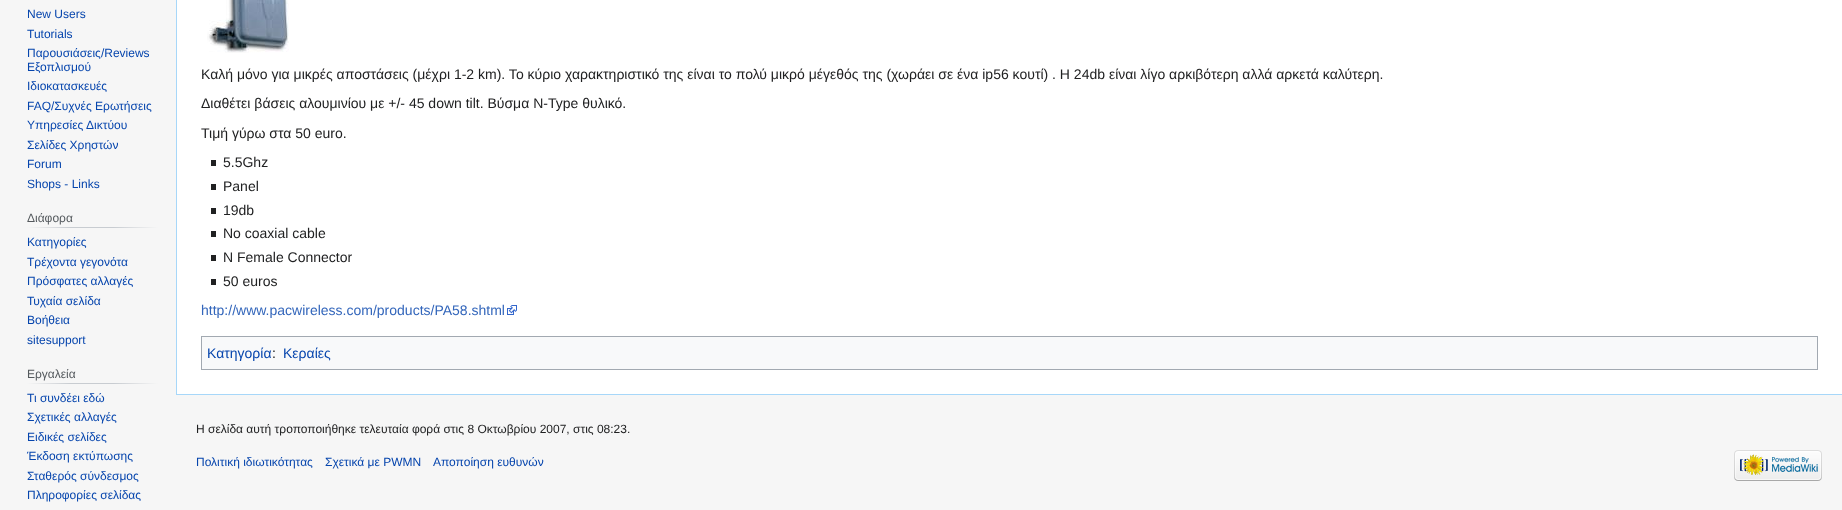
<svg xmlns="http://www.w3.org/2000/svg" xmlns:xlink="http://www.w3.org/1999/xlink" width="1842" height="510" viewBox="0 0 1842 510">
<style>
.cls-1{font:12px Liberation Sans;fill:#0645ad}
.cls-2{font:12px Liberation Sans;fill:#54595d}
.cls-3{font:14px Liberation Sans;fill:#202122}
.cls-4{font:14px Liberation Sans;fill:#3366bb}
.cls-5{font:14px Liberation Sans;fill:#0645ad}
.cls-6{font:12px Liberation Sans;fill:#202122}
</style>
<defs>
<linearGradient id="g1" gradientUnits="userSpaceOnUse" x1="27" y1="228" x2="158" y2="228"><stop offset="0" stop-color="#f6f6f6"/><stop offset="0.33" stop-color="#c8ccd1"/><stop offset="0.66" stop-color="#c8ccd1"/><stop offset="1" stop-color="#f6f6f6"/></linearGradient>
<linearGradient id="g2" gradientUnits="userSpaceOnUse" x1="27" y1="384" x2="158" y2="384"><stop offset="0" stop-color="#f6f6f6"/><stop offset="0.33" stop-color="#c8ccd1"/><stop offset="0.66" stop-color="#c8ccd1"/><stop offset="1" stop-color="#f6f6f6"/></linearGradient>
</defs>
<rect width="100%" height="100%" fill="#f6f6f6"/>
<rect fill="url(#g1)" x="27" y="227" width="131" height="1"/>
<rect fill="url(#g2)" x="27" y="383" width="131" height="1"/>
<rect fill="#ffffff" x="177" y="0" width="1665" height="394"/>
<rect fill="#a7d7f9" x="176" y="394" width="1666" height="1"/>
<rect fill="#a7d7f9" x="176" y="0" width="1" height="395"/>
<image xlink:href="image0.png" x="207" y="0" width="82" height="53"/>
<rect fill="#202122" x="211" y="160" width="5" height="6"/>
<rect fill="#202122" x="211" y="184" width="5" height="6"/>
<rect fill="#202122" x="211" y="208" width="5" height="6"/>
<rect fill="#202122" x="211" y="231" width="5" height="6"/>
<rect fill="#202122" x="211" y="255" width="5" height="6"/>
<rect fill="#202122" x="211" y="279" width="5" height="6"/>
<image xlink:href="image1.png" x="507" y="305" width="10" height="10"/>
<rect fill="#f8f9fa" stroke="#a2a9b1" x="201.5" y="336.5" width="1616" height="33"/>
<image xlink:href="image2.png" x="1734" y="450" width="88" height="31"/>
<text class="cls-1"><tspan x="27" y="18">New Users</tspan><tspan x="27" y="38">Tutorials</tspan><tspan x="27" y="57">Παρουσιάσεις/Reviews</tspan><tspan x="27" y="71">Εξοπλισμού</tspan><tspan x="27" y="90">Ιδιοκατασκευές</tspan><tspan x="27" y="110">FAQ/Συχνές Ερωτήσεις</tspan><tspan x="27" y="129">Υπηρεσίες Δικτύου</tspan><tspan x="27" y="149">Σελίδες Χρηστών</tspan><tspan x="27" y="168">Forum</tspan><tspan x="27" y="188">Shops - Links</tspan></text>
<text class="cls-2" x="27" y="222">Διάφορα</text>
<text class="cls-1"><tspan x="27" y="246">Κατηγορίες</tspan><tspan x="27" y="266">Τρέχοντα γεγονότα</tspan><tspan x="27" y="285">Πρόσφατες αλλαγές</tspan><tspan x="27" y="305">Τυχαία σελίδα</tspan><tspan x="27" y="324">Βοήθεια</tspan><tspan x="27" y="344">sitesupport</tspan></text>
<text class="cls-2" x="27" y="378">Εργαλεία</text>
<text class="cls-1"><tspan x="27" y="402">Τι συνδέει εδώ</tspan><tspan x="27" y="421">Σχετικές αλλαγές</tspan><tspan x="27" y="441">Ειδικές σελίδες</tspan><tspan x="27" y="460">Έκδοση εκτύπωσης</tspan><tspan x="27" y="480">Σταθερός σύνδεσμος</tspan><tspan x="27" y="499">Πληροφορίες σελίδας</tspan></text>
<text class="cls-3" x="201" y="79">Καλή μόνο για μικρές αποστάσεις (μέχρι 1-2 km). Το κύριο χαρακτηριστικό της είναι το πολύ μικρό μέγεθός της (χωράει σε ένα ip56 κουτί) . Η 24db είναι λίγο αρκιβότερη αλλά αρκετά καλύτερη.</text>
<text class="cls-3" x="201" y="108">Διαθέτει βάσεις αλουμινίου με +/- 45 down tilt. Βύσμα N-Type θυλικό.</text>
<text class="cls-3" x="201" y="138">Τιμή γύρω στα 50 euro.</text>
<text class="cls-3"><tspan x="223" y="167">5.5Ghz</tspan><tspan x="223" y="191">Panel</tspan><tspan x="223" y="215">19db</tspan><tspan x="223" y="238">Νο coaxial cable</tspan><tspan x="223" y="262">N Female Connector</tspan><tspan x="223" y="286">50 euros</tspan></text>
<text class="cls-4" x="201" y="315">http://www.pacwireless.com/products/PA58.shtml</text>
<text class="cls-5" x="207" y="358">Κατηγορία</text>
<text class="cls-3" x="272" y="358">:</text>
<text class="cls-5" x="283" y="358">Κεραίες</text>
<text class="cls-6" x="196" y="433">Η σελίδα αυτή τροποποιήθηκε τελευταία φορά στις 8 Οκτωβρίου 2007, στις 08:23.</text>
<text class="cls-1" x="196" y="466">Πολιτική ιδιωτικότητας</text>
<text class="cls-1" x="325" y="466">Σχετικά με PWMN</text>
<text class="cls-1" x="433" y="466">Αποποίηση ευθυνών</text>
</svg>
